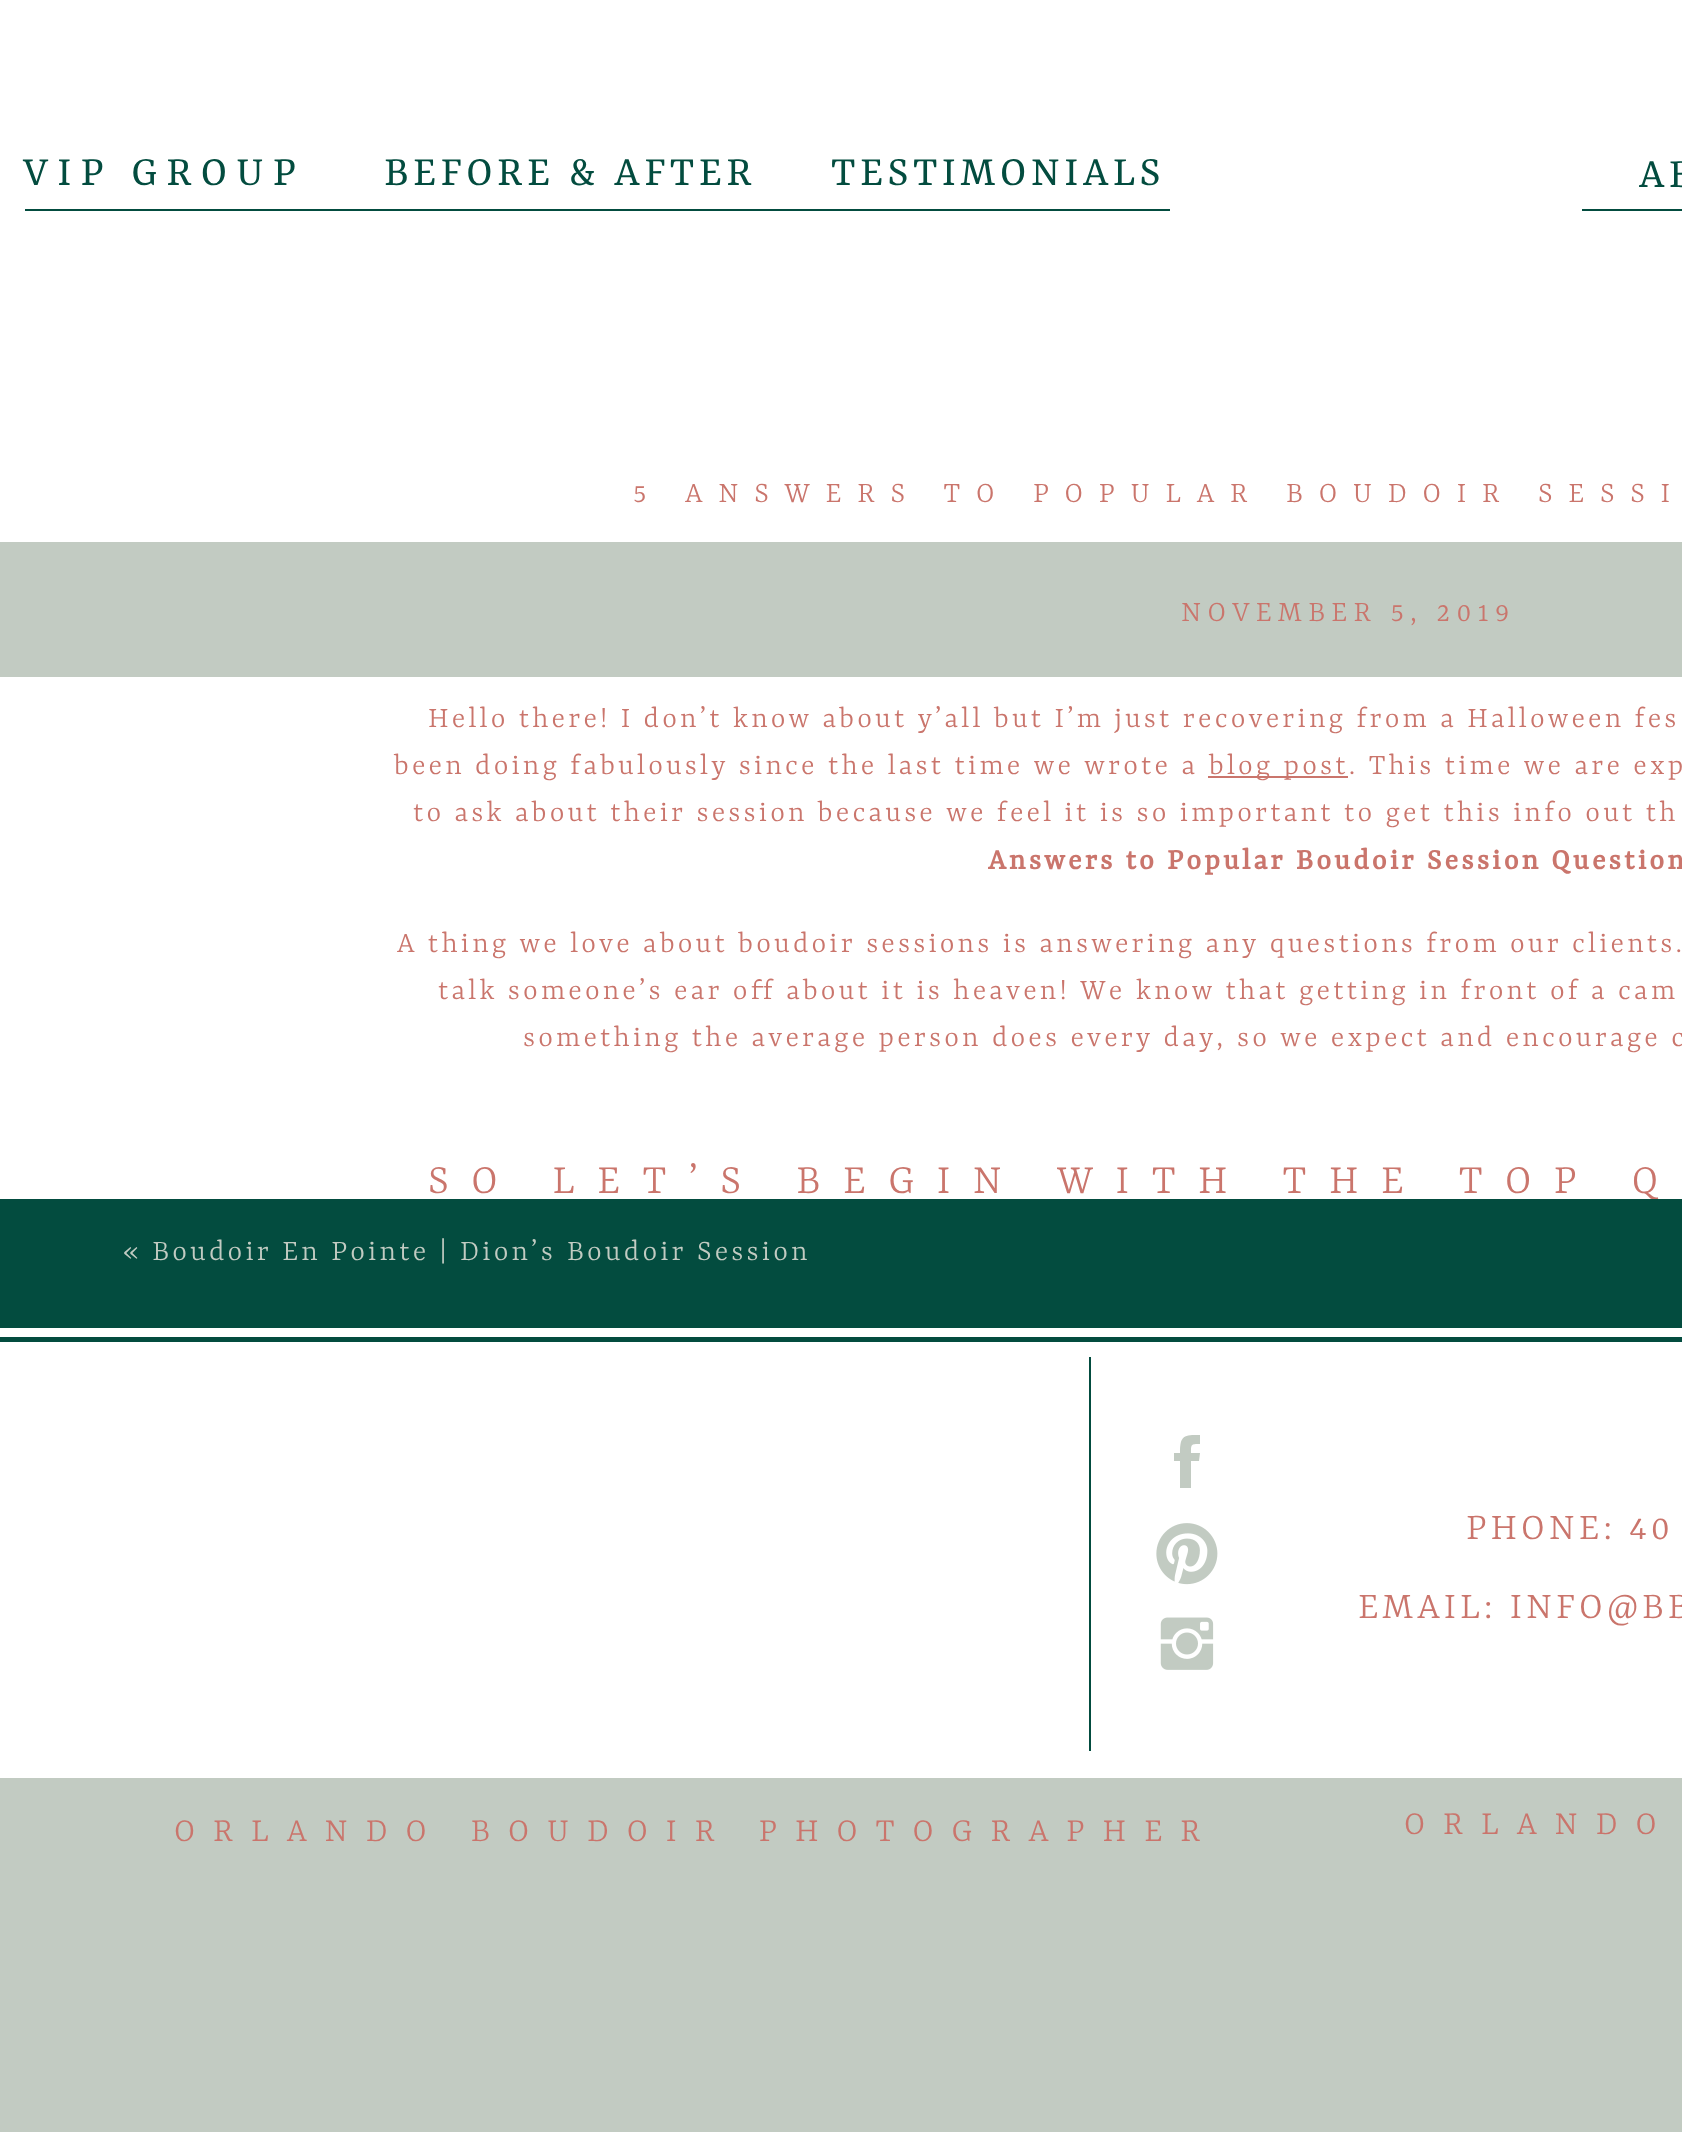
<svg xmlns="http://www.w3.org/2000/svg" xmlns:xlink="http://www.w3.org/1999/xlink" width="1682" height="2132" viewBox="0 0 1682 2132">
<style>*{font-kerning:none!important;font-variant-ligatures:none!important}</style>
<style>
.cls-1{font:45px Yrsa;letter-spacing:9px;fill:#034c3f}
.cls-2{font:45px Yrsa;letter-spacing:4.5px;fill:#034c3f}
.cls-3{font:300 31.5px Yrsa;letter-spacing:15.75px;fill:#ca756c}
.cls-4{font:300 31.5px Yrsa;letter-spacing:6.25px;fill:#ca756c}
.cls-5{font:300 31.5px Yrsa;letter-spacing:3.15px;fill:#ca756c}
.cls-6{font:bold 31.5px Yrsa;letter-spacing:3.15px;fill:#ca756c}
.cls-7{font:300 45px Yrsa;letter-spacing:22.5px;fill:#ca756c}
.cls-8{font:300 31.5px Yrsa;letter-spacing:3.15px;fill:#c2cbc2}
.cls-9{font:300 40.5px Yrsa;letter-spacing:4px;fill:#ca756c}
.cls-10{font:300 36px Yrsa;letter-spacing:18px;fill:#ca756c}
</style>
<rect width="100%" height="100%" fill="#c2cbc2"/>
<rect fill="#ffffff" x="0" y="0" width="1682" height="542"/>
<rect fill="#034c3f" x="25" y="209" width="1145" height="2"/>
<rect fill="#034c3f" x="1582" y="209" width="100" height="2"/>
<rect fill="#ffffff" x="0" y="677" width="1682" height="522"/>
<rect fill="#ca756c" x="1208" y="776" width="140" height="2"/>
<rect fill="#ffffff" x="0" y="1328" width="1682" height="450"/>
<rect fill="#034c3f" x="0" y="1337" width="1682" height="5"/>
<rect fill="#034c3f" x="1089" y="1357" width="2" height="394"/>
<path fill="#c2cbc2" d="M1191 1453C1191 1444 1191 1444 1200 1444V1435C1184 1435 1180 1435 1180 1453H1174V1461H1180V1488H1191V1461H1199L1200 1453Z"/>
<image xlink:href="image0.png" x="1156" y="1523" width="62" height="62"/>
<image xlink:href="image1.png" x="1160" y="1617" width="54" height="53"/>
<text class="cls-1" x="23" y="185">VIP GROUP</text>
<text class="cls-2" x="384" y="185">BEFORE &amp; AFTER</text>
<text class="cls-2" x="831" y="185">TESTIMONIALS</text>
<text class="cls-2" x="1639" y="187">AB</text>
<text class="cls-3" x="633" y="502">5 ANSWERS TO POPULAR BOUDOIR SESSI</text>
<text class="cls-4" x="1181" y="621">NOVEMBER 5, 2019</text>
<text class="cls-5" x="428" y="727">Hello there! I don’t know about y’all</text>
<text class="cls-5" x="994" y="727">but I’m just recovering from a Halloween fes</text>
<text class="cls-5" x="394" y="774">been doing fabulously since the last time we wrote a</text>
<text class="cls-5" x="1209" y="774">blog post. This time we are exp</text>
<text class="cls-5" x="413" y="821">to ask about their session because we feel it is so important to get this info out th</text>
<text class="cls-6" x="988" y="869">Answers to Popular Boudoir Session Question</text>
<text class="cls-5" x="397" y="952">A thing we love about boudoir sessions is answering any questions from our</text>
<text class="cls-5" x="1572" y="952">clients.</text>
<text class="cls-5" x="438" y="999">talk someone’s ear off about it is heaven! We</text>
<text class="cls-5" x="1136" y="999">know that getting in front of a cam</text>
<text class="cls-5" x="523" y="1046">something the average person does every day,</text>
<text class="cls-5" x="1237" y="1046">so we expect and encourage c</text>
<text class="cls-7" x="428" y="1193">SO LET’S BEGIN WITH THE TOP Q</text>
<rect fill="#034c3f" x="0" y="1199" width="1682" height="129"/>
<text class="cls-8" x="123" y="1260">« Boudoir En Pointe | Dion’s</text>
<text class="cls-8" x="567" y="1260">Boudoir Session</text>
<text class="cls-9" x="1466" y="1539">PHONE: 40</text>
<text class="cls-9" x="1358" y="1618">EMAIL: INFO@BB</text>
<text class="cls-10" x="174" y="1841">ORLANDO BOUDOIR PHOTOGRAPHER</text>
<text class="cls-10" x="1404" y="1834">ORLANDO</text>
</svg>
